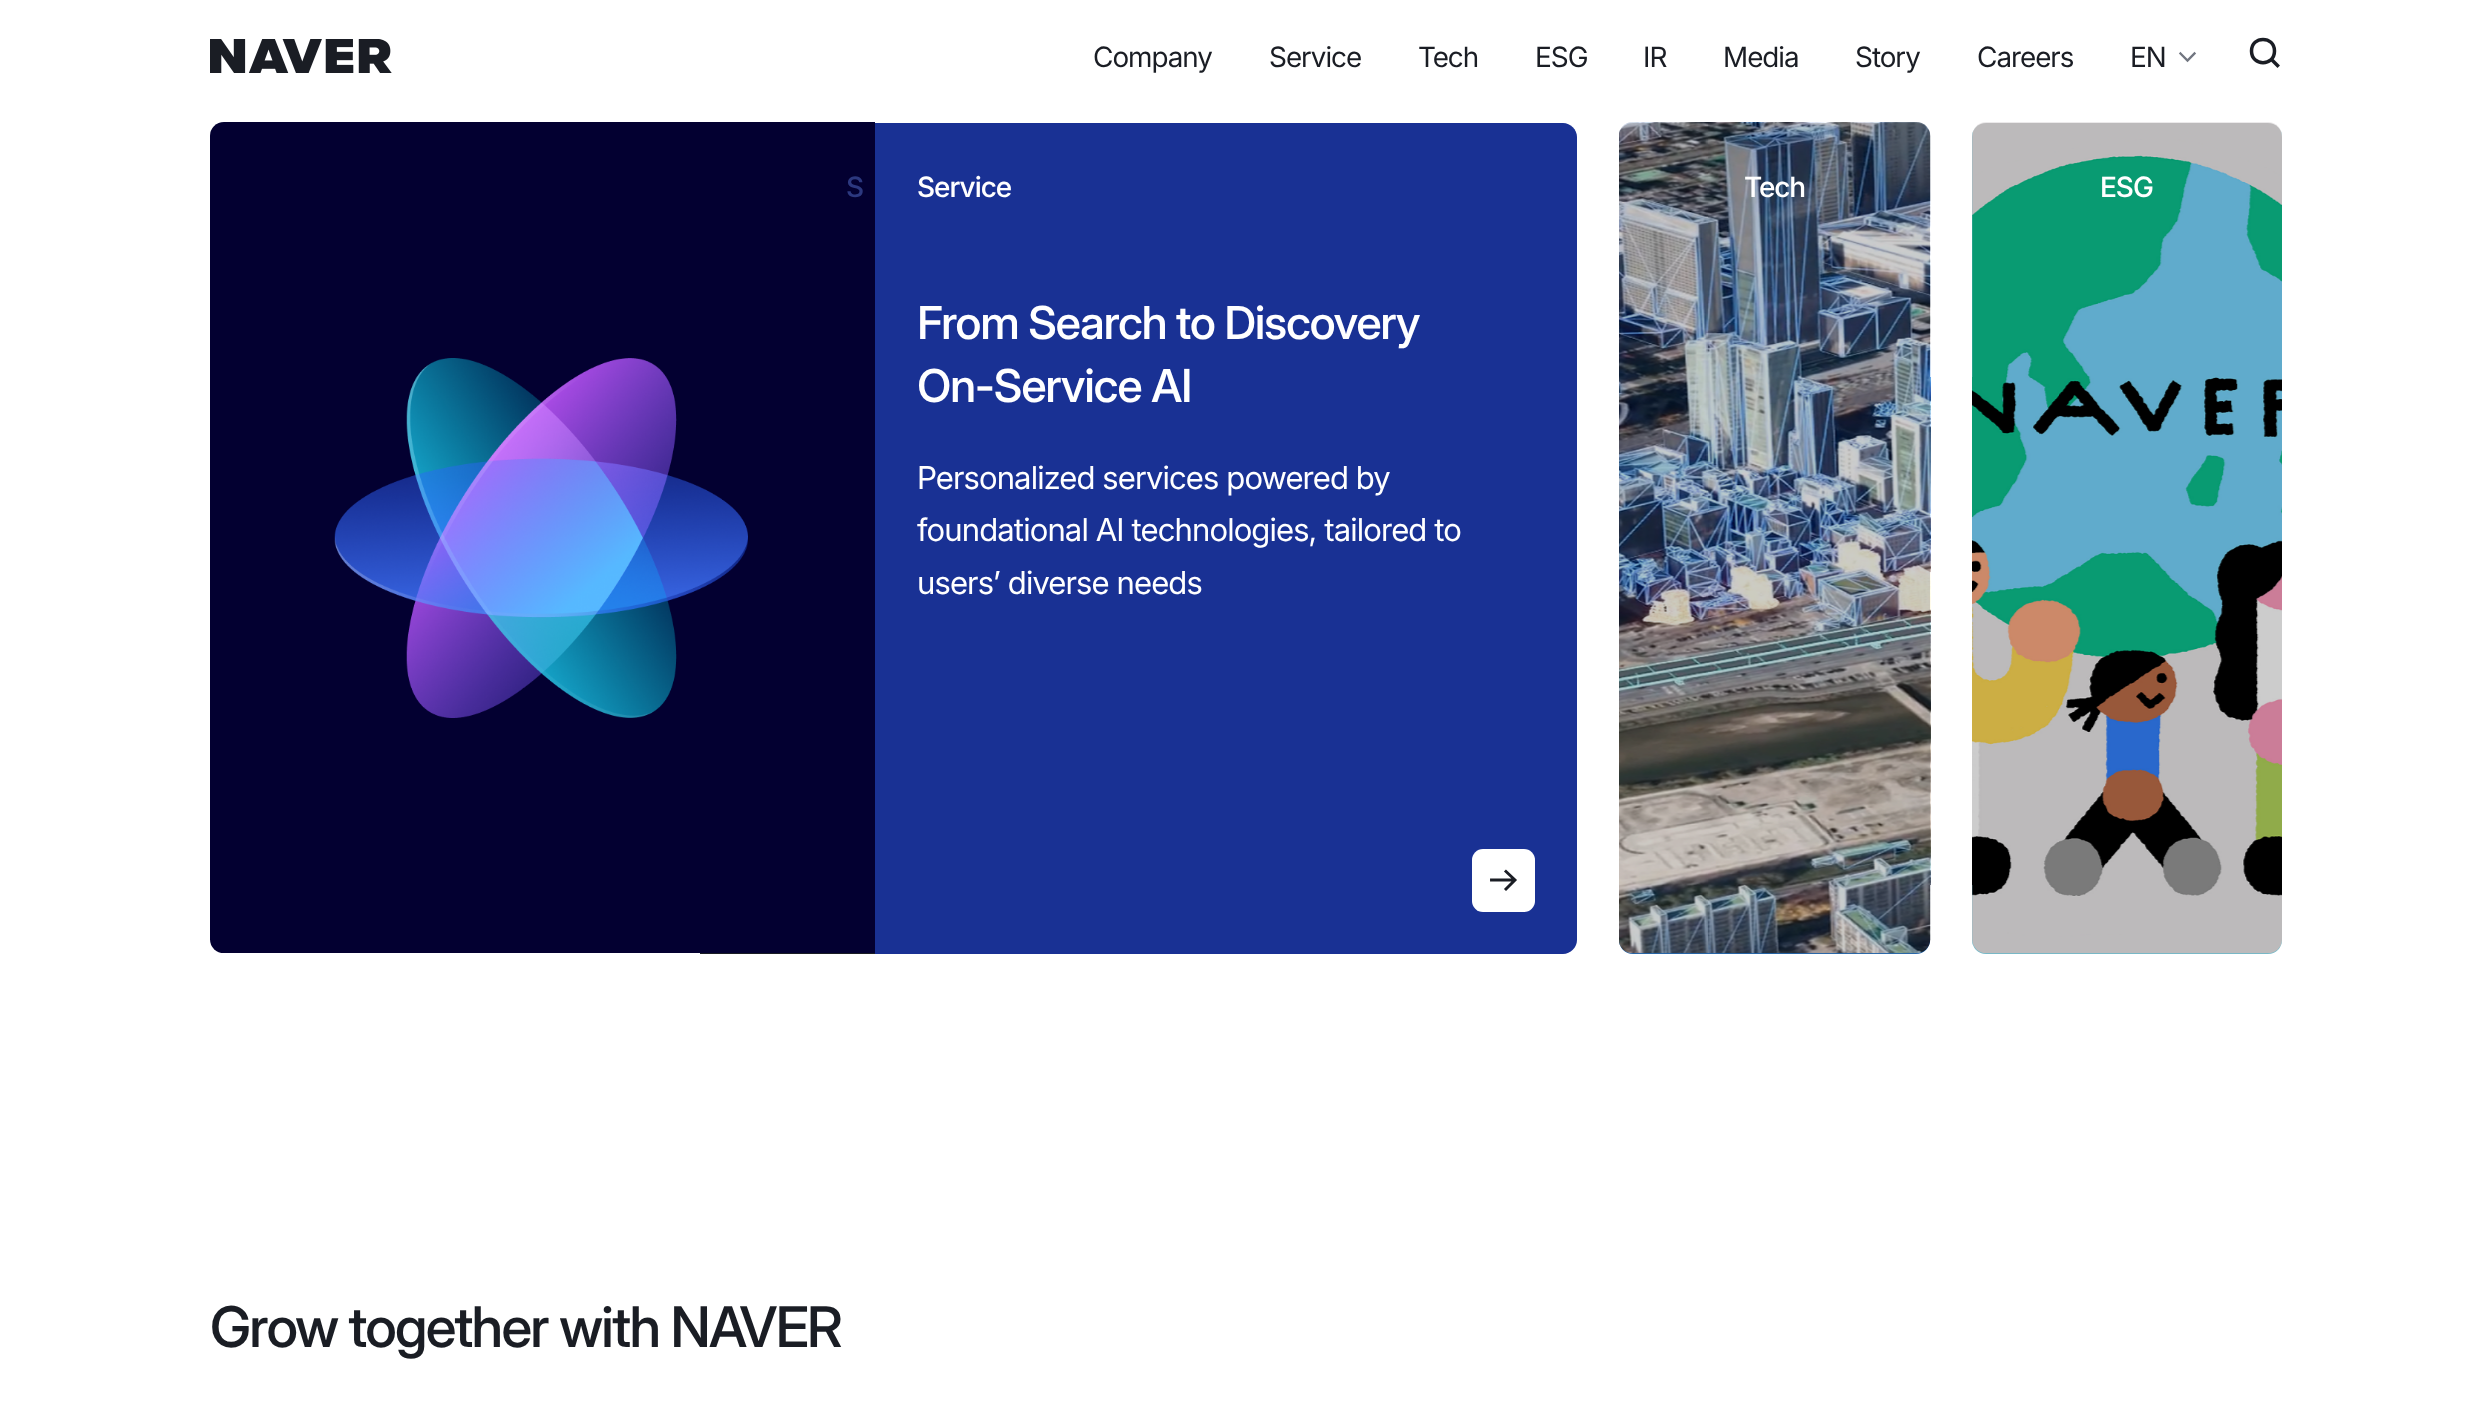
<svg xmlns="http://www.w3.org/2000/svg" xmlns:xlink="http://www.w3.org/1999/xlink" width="2491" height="1419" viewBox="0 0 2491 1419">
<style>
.cls-1{font:28px 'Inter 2';letter-spacing:-1px;fill:#1a1d24}
.cls-2{font:500 28px Inter;letter-spacing:-1px;fill:#2c387f}
.cls-3{font:500 28px Inter;letter-spacing:-1px;fill:#ffffff}
.cls-4{font:500 45.5px 'Inter 2';letter-spacing:-1.4px;fill:#ffffff}
.cls-5{font:31.5px Inter;letter-spacing:-0.85px;fill:#ffffff}
.cls-6{font:500 56px 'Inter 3';letter-spacing:-1.75px;fill:#1a1d24}
</style>
<rect width="100%" height="100%" fill="#ffffff"/>
<image xlink:href="image0.png" x="210" y="39" width="182" height="34"/>
<path fill="none" stroke="#717680" stroke-width="2.3" stroke-linecap="square" d="M2180.5 53.5L2187.5 60.5L2194.5 53.5"/>
<path fill="none" stroke="#1a1d24" stroke-width="3.5" stroke-linecap="square" d="M2277.5 65.5L2271.5 59.5M2274.5 51C2274.5 66.5 2251.5 66.5 2251.5 51C2251.5 35.5 2274.5 35.5 2274.5 51Z"/>
<image xlink:href="image1.png" x="210" y="122" width="665" height="831"/>
<path fill="#193194" d="M875 123H1563C1570.5 123 1577 129.5 1577 137V940C1577 947.5 1570.5 954 1563 954H875Z"/>
<rect fill="#1a1d24" x="700" y="953" width="175" height="1"/>
<rect fill="#ffffff" x="1472" y="849" width="63" height="63" rx="11"/>
<path fill="none" stroke="#1a1d24" stroke-width="2.9" stroke-linecap="square" d="M1491.5 880H1512.5M1506 871.5L1515 880L1506 889"/>
<rect fill="#2f80d5" x="1619" y="123" width="311" height="831" rx="14"/>
<image xlink:href="image2.png" x="1619" y="122" width="312" height="832"/>
<rect fill="#000000" fill-opacity="0.2" x="1619" y="123" width="311" height="831" rx="14"/>
<rect fill="#92e7fa" x="1972" y="123" width="310" height="831" rx="14"/>
<image xlink:href="image3.png" x="1972" y="122" width="310" height="832"/>
<rect fill="#000000" fill-opacity="0.2" x="1972" y="123" width="310" height="831" rx="14"/>
<text class="cls-1" x="1093" y="67">Company</text>
<text class="cls-1" x="1269" y="67">Service</text>
<text class="cls-1" x="1418" y="67">Tech</text>
<text class="cls-1" x="1535" y="67">ESG</text>
<text class="cls-1" x="1643" y="67">IR</text>
<text class="cls-1" x="1723" y="67">Media</text>
<text class="cls-1" x="1855" y="67">Story</text>
<text class="cls-1" x="1977" y="67">Careers</text>
<text class="cls-1" x="2130" y="67">EN</text>
<text class="cls-2" x="846" y="197">S</text>
<text class="cls-3" x="917" y="197">Service</text>
<text class="cls-4"><tspan x="917" y="339">From Search to Discovery</tspan><tspan x="917" y="402">On-Service AI</tspan></text>
<text class="cls-5"><tspan x="917" y="489">Personalized services powered by</tspan><tspan x="917" y="541">foundational AI technologies, tailored to</tspan><tspan x="917" y="594">users’ diverse needs</tspan></text>
<text class="cls-3" x="1744" y="197">Tech</text>
<text class="cls-3" x="2100" y="197">ESG</text>
<text class="cls-6" x="210" y="1347">Grow together with NAVER</text>
</svg>
